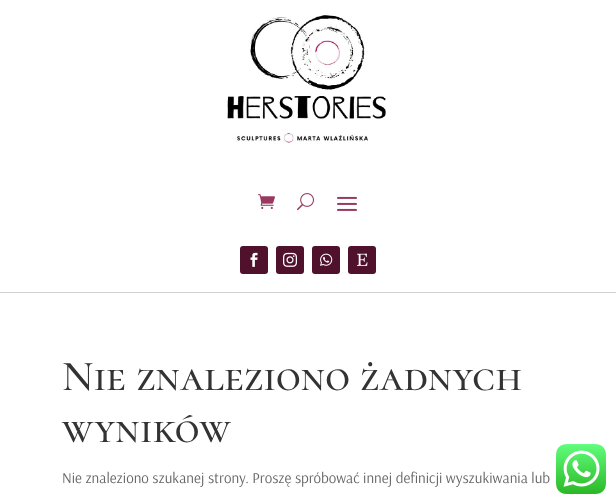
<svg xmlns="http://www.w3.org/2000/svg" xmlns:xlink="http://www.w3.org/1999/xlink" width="616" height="504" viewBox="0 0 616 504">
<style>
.cls-1{font:500 43px Cormorant SC;fill:#333333}
.cls-2{font:15px Arsenal;fill:#666666}
</style>
<rect width="100%" height="100%" fill="#ffffff"/>
<rect fill="#d2d2d2" x="0" y="292" width="616" height="1"/>
<image xlink:href="image0.png" x="227" y="15" width="159" height="128"/>
<image xlink:href="image1.png" x="258" y="194" width="17" height="15"/>
<image xlink:href="image2.png" x="297" y="193" width="17" height="18"/>
<image xlink:href="image3.png" x="337" y="196" width="20" height="15"/>
<rect fill="#50112c" x="240" y="246" width="28" height="28" rx="3"/>
<image xlink:href="image4.png" x="250" y="252" width="8" height="15"/>
<rect fill="#50112c" x="276" y="246" width="28" height="28" rx="3"/>
<image xlink:href="image5.png" x="283" y="252" width="14" height="15"/>
<rect fill="#50112c" x="312" y="246" width="28" height="28" rx="3"/>
<image xlink:href="image6.png" x="320" y="253" width="13" height="13"/>
<rect fill="#50112c" x="348" y="246" width="28" height="28" rx="3"/>
<image xlink:href="image7.png" x="357" y="253" width="11" height="13"/>
<image xlink:href="image8.png" x="556" y="444" width="50" height="50"/>
<text class="cls-1"><tspan x="62" y="390">Nie znaleziono żadnych</tspan><tspan x="62" y="442">wyników</tspan></text>
<text class="cls-2" x="62" y="483">Nie znaleziono szukanej strony. Proszę spróbować innej definicji wyszukiwania lub</text>
</svg>
